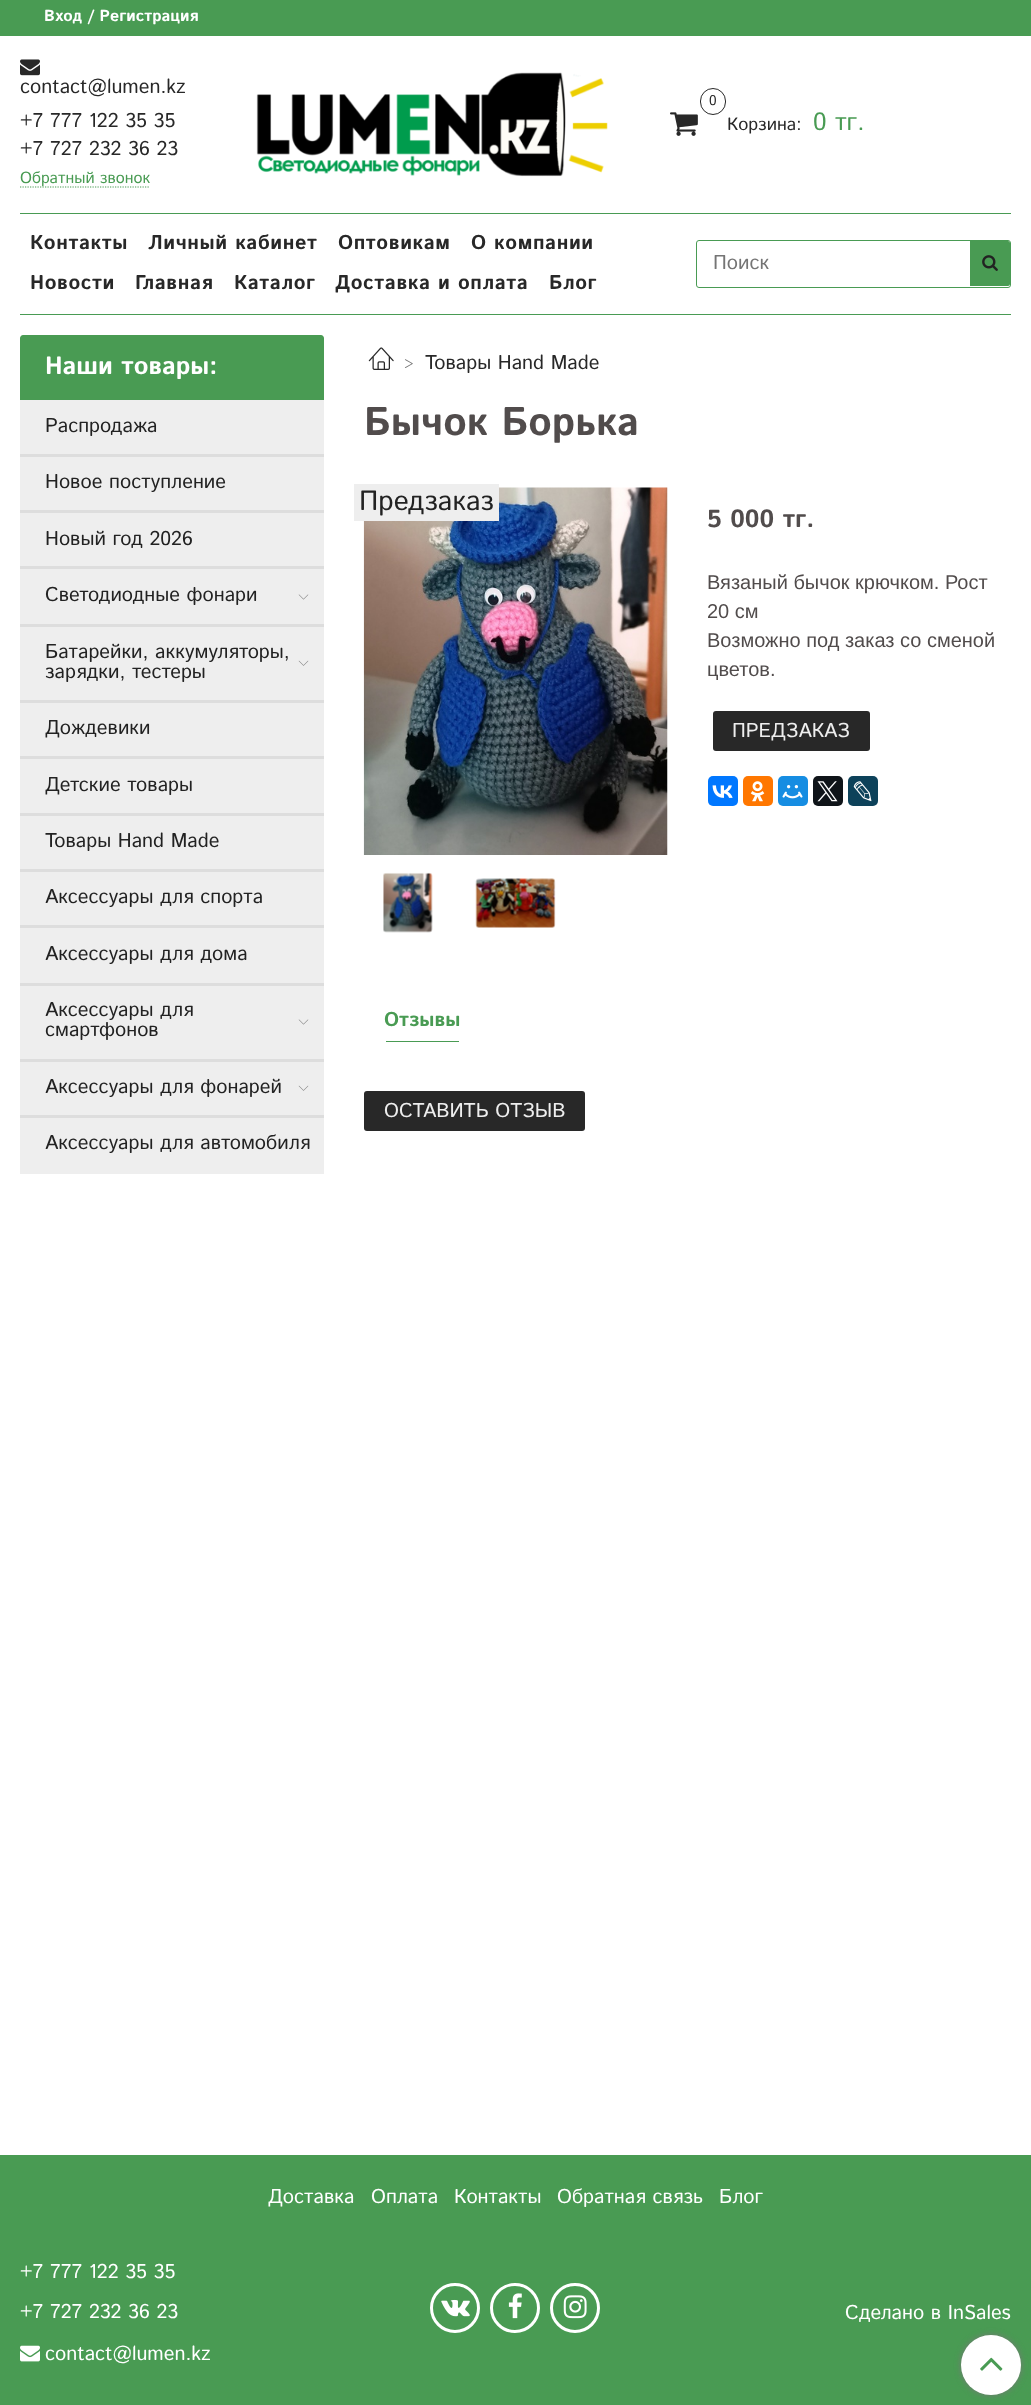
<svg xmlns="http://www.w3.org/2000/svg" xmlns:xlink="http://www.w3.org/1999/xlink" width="1031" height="2405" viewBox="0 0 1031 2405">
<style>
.cls-1{font:bold 16px Istok Web;fill:#ffffff}
.cls-2{font:20px Istok Web;fill:#282828}
.cls-3{font:16px Istok Web;fill:#499b53}
.cls-4{font:14px Istok Web;fill:#282828}
.cls-5{font:18px Istok Web;fill:#282828}
.cls-6{font:25px Istok Web;fill:#499b53}
.cls-7{font:bold 20px Istok Web;letter-spacing:0.6px;fill:#282828}
.cls-8{font:20px Istok Web;fill:#757575}
.cls-9{font:bold 25px Istok Web;fill:#ffffff}
.cls-10{font:20px Istok Web;fill:#222222}
.cls-11{font:15px Istok Web;fill:#757575}
.cls-12{font:bold 40px Istok Web;fill:#514c4c}
.cls-13{font:28px Istok Web;fill:#222222}
.cls-14{font:bold 25px Istok Web;fill:#514c4c}
.cls-15{font:20px Liberation Sans;fill:#514c4c}
.cls-16{font:20px Istok Web;fill:#eeeeee}
.cls-17{font:bold 20px Istok Web;fill:#499b53}
.cls-18{font:20px Istok Web;fill:#ffffff}
</style>
<rect width="100%" height="100%" fill="#ffffff"/>
<rect fill="#499b53" x="0" y="0" width="1031" height="36"/>
<image xlink:href="image0.png" x="20" y="59" width="20" height="17"/>
<path fill="none" stroke="#499b53" stroke-width="1.2" stroke-dasharray="1.25 1.25" d="M20 187H150"/>
<image xlink:href="image1.png" x="256" y="72" width="352" height="105"/>
<rect fill="none" stroke="#282828" x="700.5" y="88.5" width="25" height="26" rx="12.5"/>
<image xlink:href="image2.png" x="670" y="112" width="28" height="24"/>
<rect fill="#499b53" x="20" y="213" width="991" height="1"/>
<rect fill="#499b53" x="20" y="314" width="991" height="1"/>
<rect fill="none" stroke="#499b53" x="696.5" y="240.5" width="314" height="47" rx="2.5"/>
<path fill="#499b53" d="M970 241H1008C1009 241 1010 242 1010 243V284C1010 285 1009 286 1008 286H970Z"/>
<image xlink:href="image3.png" x="982" y="255" width="16" height="16"/>
<path fill="#499b53" d="M23 335H321C322.5 335 324 336.5 324 338V400H20V338C20 336.5 21.5 335 23 335Z"/>
<rect fill="#eeeeee" x="20" y="400" width="304" height="774"/>
<rect fill="#dddddd" x="20" y="454" width="304" height="3"/>
<rect fill="#dddddd" x="20" y="510" width="304" height="3"/>
<rect fill="#dddddd" x="20" y="566" width="304" height="3"/>
<rect fill="#dddddd" x="20" y="624" width="304" height="3"/>
<image xlink:href="image4.png" x="298" y="594" width="11" height="6"/>
<rect fill="#dddddd" x="20" y="700" width="304" height="3"/>
<image xlink:href="image5.png" x="298" y="660" width="11" height="6"/>
<rect fill="#dddddd" x="20" y="756" width="304" height="3"/>
<rect fill="#dddddd" x="20" y="813" width="304" height="3"/>
<rect fill="#dddddd" x="20" y="869" width="304" height="3"/>
<rect fill="#dddddd" x="20" y="925" width="304" height="3"/>
<rect fill="#dddddd" x="20" y="983" width="304" height="3"/>
<rect fill="#dddddd" x="20" y="1059" width="304" height="3"/>
<image xlink:href="image4.png" x="298" y="1019" width="11" height="6"/>
<rect fill="#dddddd" x="20" y="1115" width="304" height="3"/>
<image xlink:href="image5.png" x="298" y="1085" width="11" height="6"/>
<image xlink:href="image6.png" x="368" y="347" width="26" height="23"/>
<image xlink:href="image7.png" x="363" y="487" width="305" height="368"/>
<image xlink:href="image8.png" x="383" y="872" width="50" height="61"/>
<image xlink:href="image9.png" x="475" y="878" width="81" height="50"/>
<rect fill="#eeeeee" x="354" y="484" width="145" height="37"/>
<rect fill="#282828" x="713" y="711" width="157" height="40" rx="3"/>
<rect fill="#0077ff" x="708" y="776" width="30" height="30" rx="5"/>
<image xlink:href="image10.png" x="712" y="785" width="21" height="13"/>
<rect fill="#ff7700" x="743" y="776" width="30" height="30" rx="5"/>
<image xlink:href="image11.png" x="750" y="781" width="15" height="21"/>
<rect fill="#168de2" x="778" y="776" width="30" height="30" rx="5"/>
<image xlink:href="image12.png" x="782" y="785" width="21" height="14"/>
<rect fill="#0f1419" x="813" y="776" width="30" height="30" rx="5"/>
<image xlink:href="image13.png" x="817" y="781" width="21" height="21"/>
<rect fill="#0d425a" x="848" y="776" width="30" height="30" rx="5"/>
<image xlink:href="image14.png" x="853" y="781" width="19" height="21"/>
<rect fill="#499b53" x="386" y="1041" width="73" height="1"/>
<rect fill="#282828" x="364" y="1091" width="221" height="40" rx="3"/>
<rect fill="#499b53" x="0" y="2155" width="1031" height="250"/>
<image xlink:href="image15.png" x="20" y="2345" width="20" height="17"/>
<circle fill="none" stroke="#ffffff" stroke-width="3" cx="455" cy="2308" r="23.5"/>
<image xlink:href="image16.png" x="441" y="2299" width="29" height="18"/>
<circle fill="none" stroke="#ffffff" stroke-width="3" cx="515" cy="2308" r="23.5"/>
<image xlink:href="image17.png" x="508" y="2293" width="14" height="26"/>
<circle fill="none" stroke="#ffffff" stroke-width="3" cx="575" cy="2308" r="23.5"/>
<image xlink:href="image18.png" x="563" y="2295" width="24" height="24"/>
<rect fill="#777777" filter="blur(3px)" x="961" y="2335" width="60" height="60" rx="30"/>
<circle fill="#ffffff" cx="991" cy="2365" r="30"/>
<image xlink:href="image19.png" x="980" y="2357" width="23" height="14"/>
<text class="cls-1" x="44" y="21">Вход / Регистрация</text>
<text class="cls-2"><tspan x="20" y="93">contact@lumen.kz</tspan><tspan x="20" y="127">+7 777 122 35 35</tspan><tspan x="20" y="155">+7 727 232 36 23</tspan></text>
<text class="cls-3" x="20" y="183">Обратный звонок</text>
<text class="cls-4" x="709" y="105">0</text>
<text class="cls-5" x="727" y="130">Корзина:</text>
<text class="cls-6" x="813" y="130">0 тг.</text>
<text class="cls-7" x="30" y="249">Контакты</text>
<text class="cls-7" x="148" y="249">Личный кабинет</text>
<text class="cls-7" x="338" y="249">Оптовикам</text>
<text class="cls-7" x="471" y="249">О компании</text>
<text class="cls-7" x="30" y="289">Новости</text>
<text class="cls-7" x="135" y="289">Главная</text>
<text class="cls-7" x="234" y="289">Каталог</text>
<text class="cls-7" x="335" y="289">Доставка и оплата</text>
<text class="cls-7" x="549" y="289">Блог</text>
<text class="cls-8" x="713" y="269">Поиск</text>
<text class="cls-9" x="45" y="374">Наши товары:</text>
<text class="cls-10" x="45" y="432">Распродажа</text>
<text class="cls-10" x="45" y="488">Новое поступление</text>
<text class="cls-10" x="45" y="545">Новый год 2026</text>
<text class="cls-10" x="45" y="601">Светодиодные фонари</text>
<text class="cls-10"><tspan x="45" y="658">Батарейки, аккумуляторы,</tspan><tspan x="45" y="678">зарядки, тестеры</tspan></text>
<text class="cls-10" x="45" y="734">Дождевики</text>
<text class="cls-10" x="45" y="791">Детские товары</text>
<text class="cls-10" x="45" y="847">Товары Hand Made</text>
<text class="cls-10" x="45" y="903">Аксессуары для спорта</text>
<text class="cls-10" x="45" y="960">Аксессуары для дома</text>
<text class="cls-10"><tspan x="45" y="1016">Аксессуары для</tspan><tspan x="45" y="1036">смартфонов</tspan></text>
<text class="cls-10" x="45" y="1093">Аксессуары для фонарей</text>
<text class="cls-10" x="45" y="1149">Аксессуары для автомобиля</text>
<text class="cls-11" x="404" y="369">&gt;</text>
<text class="cls-2" x="425" y="369">Товары Hand Made</text>
<text class="cls-12" x="364" y="435">Бычок Борька</text>
<text class="cls-13" x="359" y="510">Предзаказ</text>
<text class="cls-14" x="707" y="527">5 000 тг.</text>
<text class="cls-15"><tspan x="707" y="589">Вязаный бычок крючком. Рост</tspan><tspan x="707" y="618">20 см</tspan><tspan x="707" y="647">Возможно под заказ со сменой</tspan><tspan x="707" y="676">цветов.</tspan></text>
<text class="cls-16" x="732" y="737">ПРЕДЗАКАЗ</text>
<text class="cls-17" x="384" y="1026">Отзывы</text>
<text class="cls-16" x="384" y="1117">ОСТАВИТЬ ОТЗЫВ</text>
<text class="cls-18" x="268" y="2203">Доставка</text>
<text class="cls-18" x="371" y="2203">Оплата</text>
<text class="cls-18" x="454" y="2203">Контакты</text>
<text class="cls-18" x="557" y="2203">Обратная связь</text>
<text class="cls-18" x="719" y="2203">Блог</text>
<text class="cls-18" x="20" y="2278">+7 777 122 35 35</text>
<text class="cls-18" x="20" y="2318">+7 727 232 36 23</text>
<text class="cls-18" x="45" y="2360">contact@lumen.kz</text>
<text class="cls-18" x="845" y="2319">Сделано в InSales</text>
</svg>
